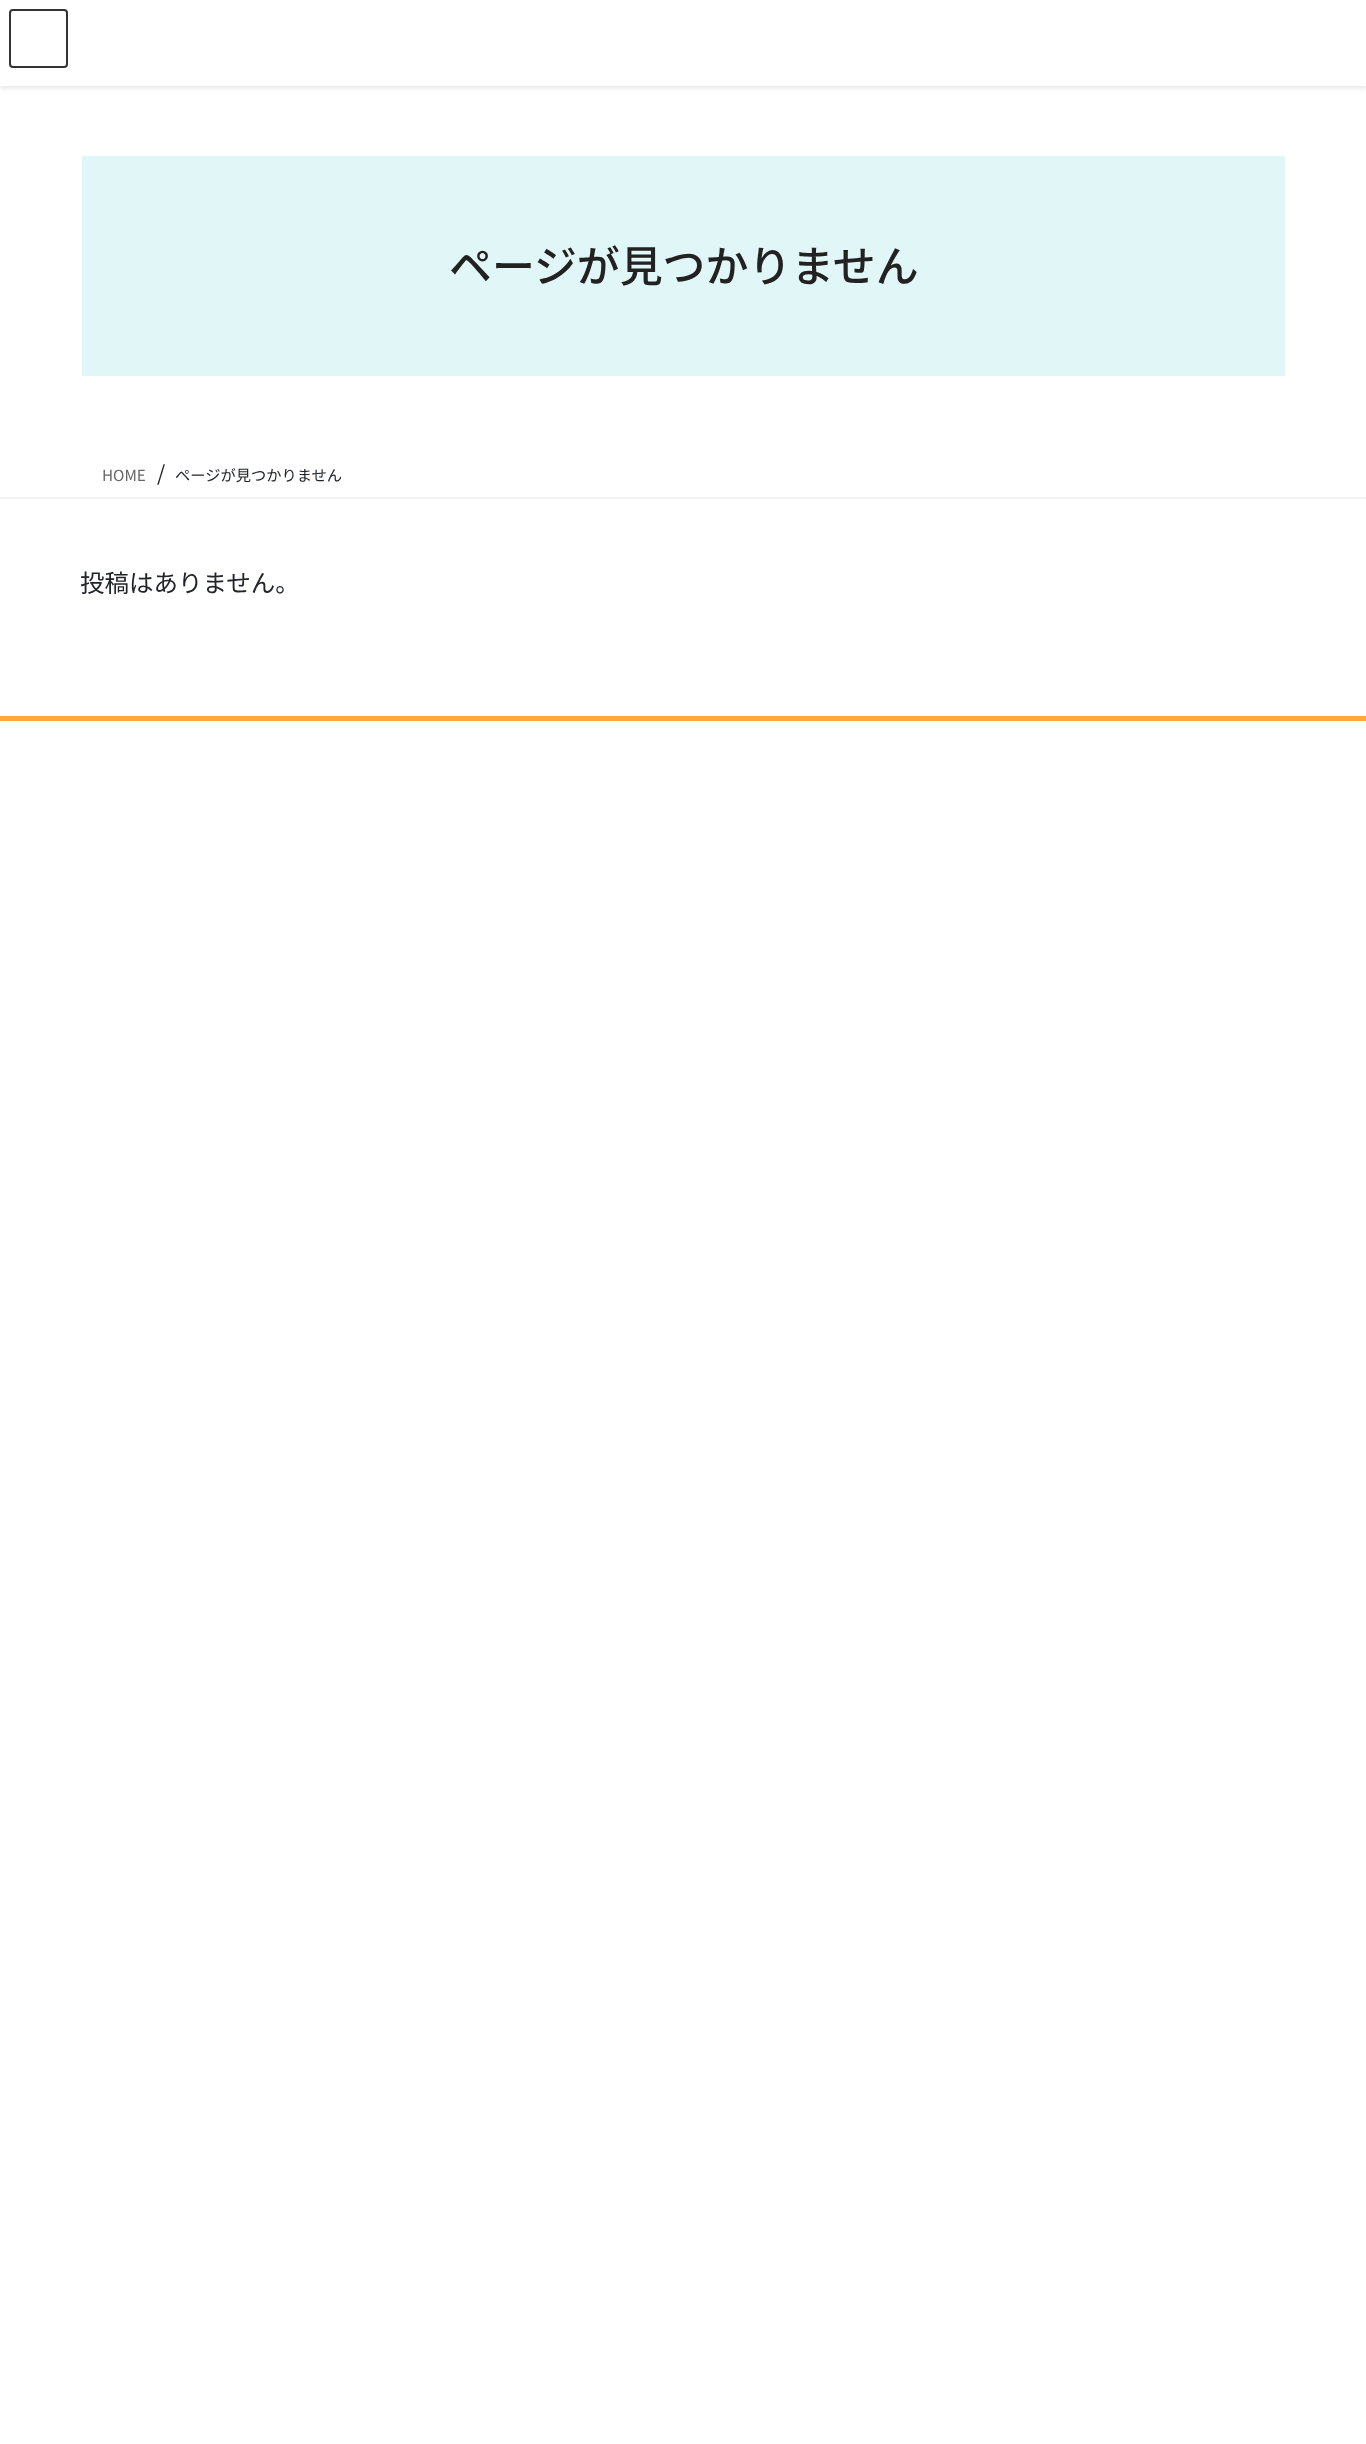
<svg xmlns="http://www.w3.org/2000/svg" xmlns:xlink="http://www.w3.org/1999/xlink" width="1366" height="2444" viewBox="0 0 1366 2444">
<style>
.cls-1{font:500 42.9px Noto Sans JP;fill:#222222}
.cls-2{font:15.25px Noto Sans JP;fill:#666666}
.cls-3{font:21px Noto Sans JP;fill:#212529}
.cls-4{font:15.25px Noto Sans JP;fill:#212529}
.cls-5{font:24.5px Noto Sans JP;fill:#212529}
</style>
<rect width="100%" height="100%" fill="#ffffff"/>
<rect fill="#000000" fill-opacity="0.1" filter="blur(2.5px)" x="0" y="2" width="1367" height="86"/>
<rect fill="#ffffff" x="0" y="0" width="1366" height="86"/>
<rect fill="none" stroke="#333333" stroke-width="2" x="10" y="10" width="57" height="57" rx="3"/>
<rect fill="#e1f6f7" x="82" y="156" width="1203" height="220"/>
<rect fill="#f2f2f2" x="0" y="497" width="1366" height="2"/>
<rect fill="#ffa93a" x="0" y="716" width="1366" height="5"/>
<text class="cls-1" x="449" y="282">ページが見つかりません</text>
<text class="cls-2" x="102" y="481">HOME</text>
<text class="cls-3" x="157" y="481">/</text>
<text class="cls-4" x="175" y="481">ページが見つかりません</text>
<text class="cls-5" x="80" y="592">投稿はありません。</text>
</svg>
